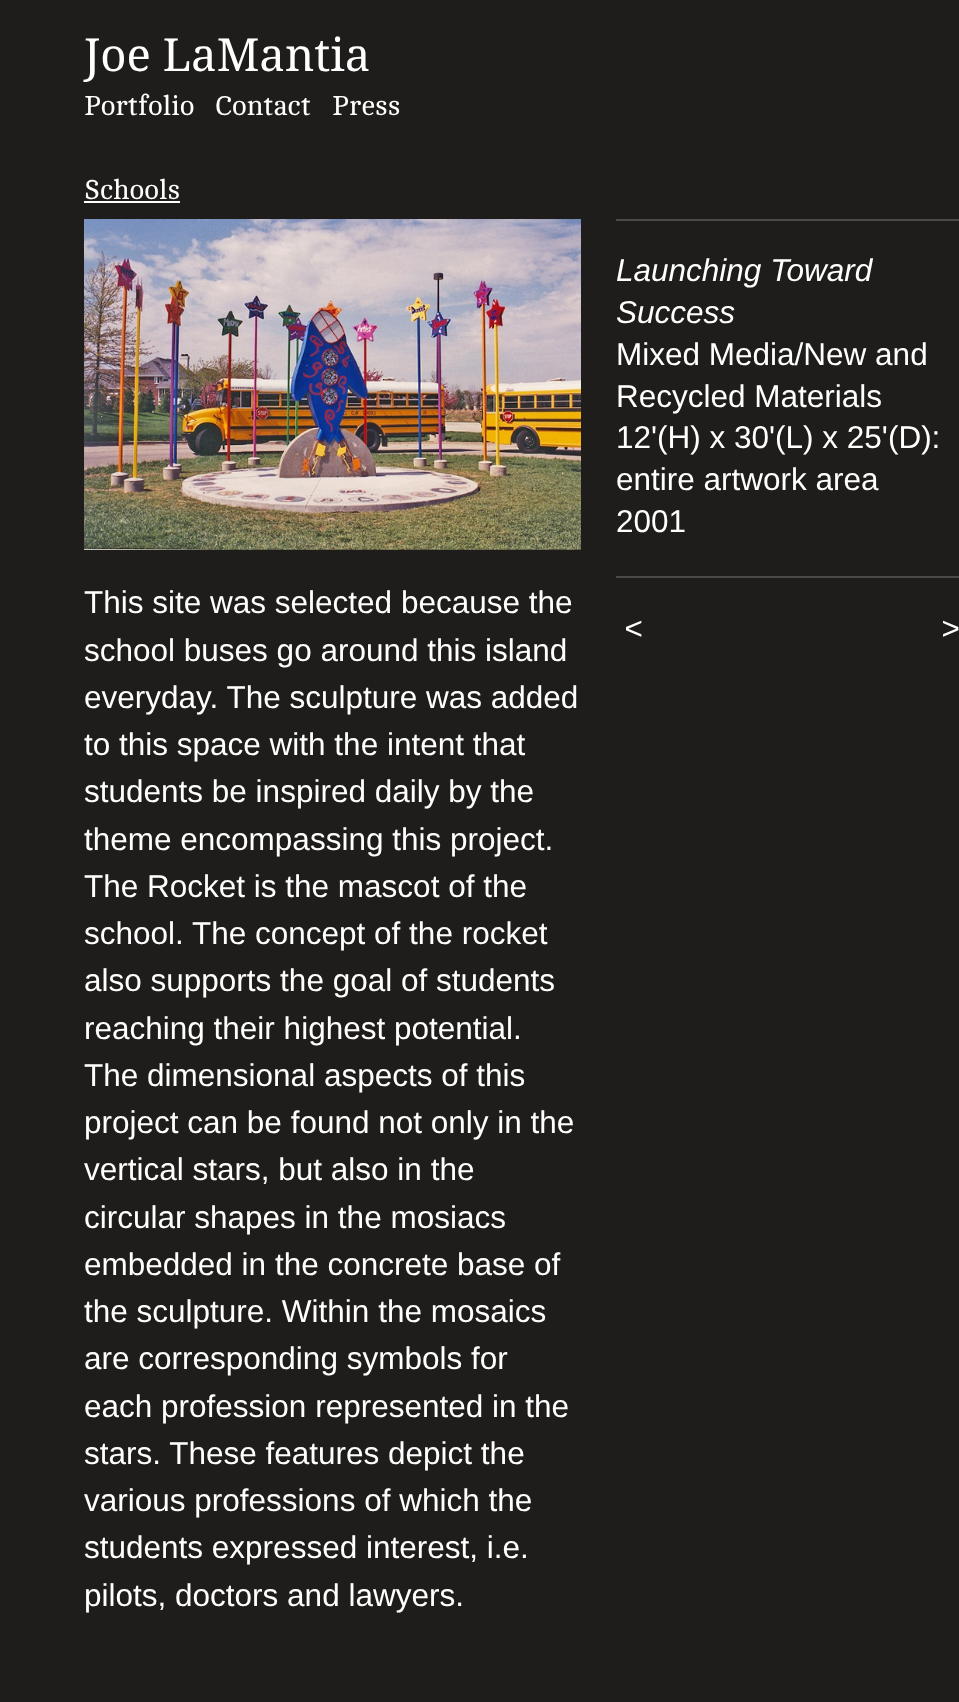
<svg xmlns="http://www.w3.org/2000/svg" xmlns:xlink="http://www.w3.org/1999/xlink" width="959" height="1702" viewBox="0 0 959 1702">
<style>
.cls-1{font:45.5px Droid Serif;fill:#ffffff}
.cls-2{font:28px Cambo;fill:#ffffff}
.cls-3{font:italic 31.5px Liberation Sans;fill:#ffffff}
.cls-4{font:31.5px Liberation Sans;fill:#ffffff}
.cls-5{font:italic 31.5px Liberation Sans;letter-spacing:2px;fill:#ffffff}
</style>
<rect width="100%" height="100%" fill="#1e1d1b"/>
<rect fill="#ffffff" x="84" y="201" width="96" height="2"/>
<image xlink:href="image0.png" x="84" y="219" width="497" height="331"/>
<rect fill="#4b4a49" x="616" y="219" width="343" height="2"/>
<rect fill="#4b4a49" x="616" y="576" width="343" height="2"/>
<text class="cls-1" x="84" y="71">Joe LaMantia</text>
<text class="cls-2" x="84" y="115">Portfolio</text>
<text class="cls-2" x="215" y="115">Contact</text>
<text class="cls-2" x="332" y="115">Press</text>
<text class="cls-2" x="84" y="199">Schools</text>
<text class="cls-3"><tspan x="616" y="281">Launching Toward</tspan><tspan x="616" y="323">Success</tspan></text>
<text class="cls-4"><tspan x="616" y="365">Mixed Media/New and</tspan><tspan x="616" y="407">Recycled Materials</tspan><tspan x="616" y="448">12'(H) x 30'(L) x 25'(D):</tspan><tspan x="616" y="490">entire artwork area</tspan><tspan x="616" y="532">2001</tspan></text>
<text class="cls-5" x="624" y="639">&lt;</text>
<text class="cls-5" x="941" y="639">&gt;</text>
<text class="cls-4"><tspan x="84" y="613">This site was selected because the</tspan><tspan x="84" y="661">school buses go around this island</tspan><tspan x="84" y="708">everyday. The sculpture was added</tspan><tspan x="84" y="755">to this space with the intent that</tspan><tspan x="84" y="802">students be inspired daily by the</tspan><tspan x="84" y="850">theme encompassing this project.</tspan><tspan x="84" y="897">The Rocket is the mascot of the</tspan><tspan x="84" y="944">school. The concept of the rocket</tspan><tspan x="84" y="991">also supports the goal of students</tspan><tspan x="84" y="1039">reaching their highest potential.</tspan><tspan x="84" y="1086">The dimensional aspects of this</tspan><tspan x="84" y="1133">project can be found not only in the</tspan><tspan x="84" y="1180">vertical stars, but also in the</tspan><tspan x="84" y="1228">circular shapes in the mosiacs</tspan><tspan x="84" y="1275">embedded in the concrete base of</tspan><tspan x="84" y="1322">the sculpture. Within the mosaics</tspan><tspan x="84" y="1369">are corresponding symbols for</tspan><tspan x="84" y="1417">each profession represented in the</tspan><tspan x="84" y="1464">stars. These features depict the</tspan><tspan x="84" y="1511">various professions of which the</tspan><tspan x="84" y="1558">students expressed interest, i.e.</tspan><tspan x="84" y="1606">pilots, doctors and lawyers.</tspan></text>
</svg>
